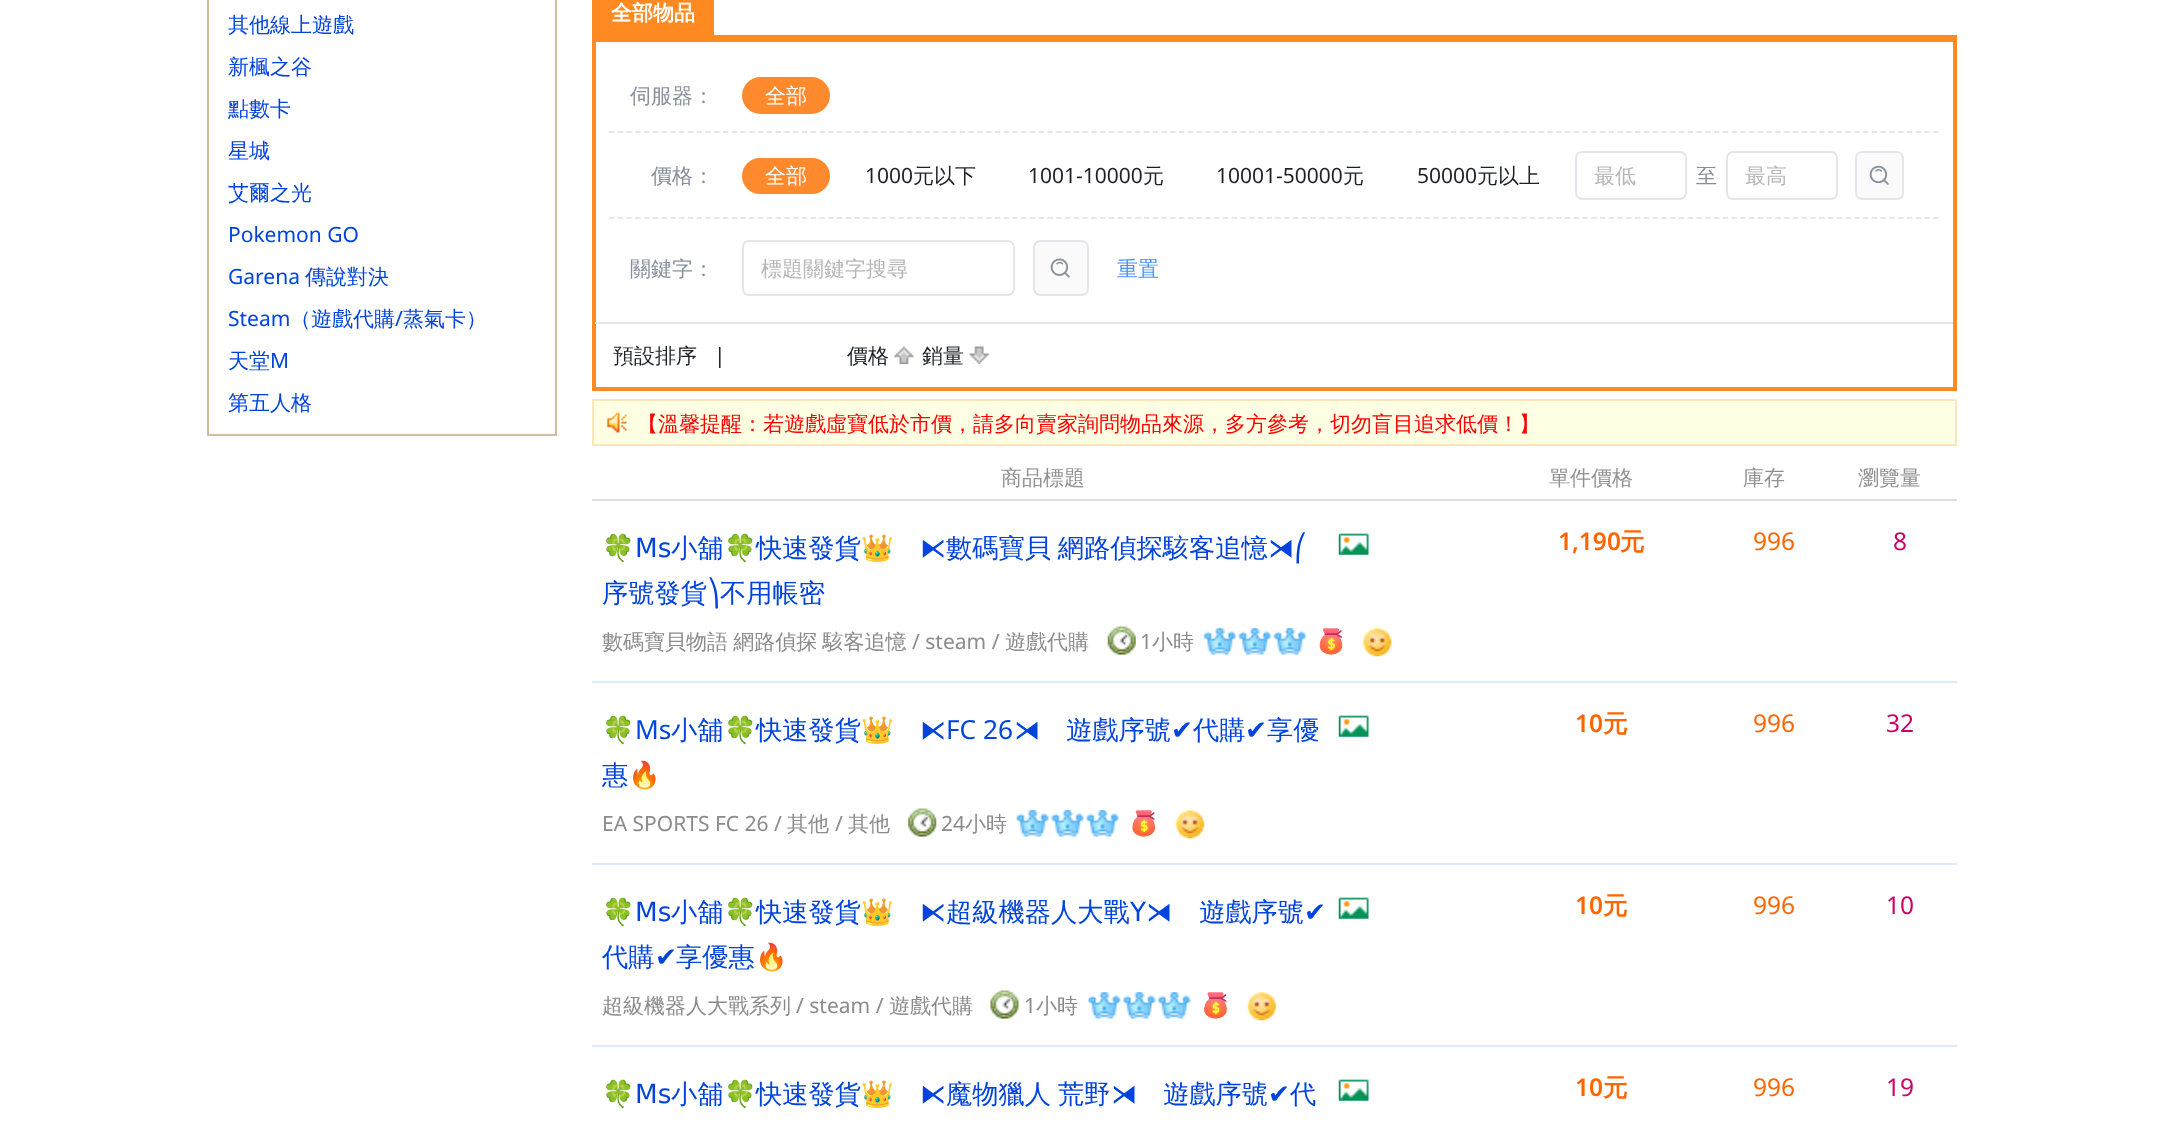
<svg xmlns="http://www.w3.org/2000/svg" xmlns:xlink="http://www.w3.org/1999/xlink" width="2162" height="1139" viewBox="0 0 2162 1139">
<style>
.cls-1{font:500 21px WenQuanYi Zen Hei;fill:#0044dd}
.cls-2{font:21px Noto Sans;fill:#0044dd}
.cls-3{font:bold 21px WenQuanYi Zen Hei;fill:#ffffff}
.cls-4{font:500 21px WenQuanYi Zen Hei;fill:#86909c}
.cls-5{font:500 21px WenQuanYi Zen Hei;fill:#ffffff}
.cls-6{font:21px Noto Sans;fill:#1d2129}
.cls-7{font:500 21px WenQuanYi Zen Hei;fill:#1d2129}
.cls-8{font:500 21px WenQuanYi Zen Hei;fill:#b6b6b6}
.cls-9{font:500 21px WenQuanYi Zen Hei;fill:#4c94fd}
.cls-10{font:500 21px WenQuanYi Zen Hei;fill:#ff0000}
.cls-11{font:500 21px WenQuanYi Zen Hei;fill:#929292}
.cls-12{font:26.25px Noto Color Emoji;fill:#0044dd}
.cls-13{font:26.25px DejaVu Sans;fill:#0044dd}
.cls-14{font:500 26.25px WenQuanYi Zen Hei;fill:#0044dd}
.cls-15{font:500 21px WenQuanYi Zen Hei;fill:#8b8b8b}
.cls-16{font:21px Noto Sans;fill:#8b8b8b}
.cls-17{font:600 24.5px Noto Sans;fill:#ff6600}
.cls-18{font:bold 24.5px WenQuanYi Zen Hei;fill:#ff6600}
.cls-19{font:24.5px Noto Sans;fill:#ff6600}
.cls-20{font:24.5px Noto Sans;fill:#cc0066}
.cls-21{font:26.25px Noto Sans;fill:#0044dd}
</style>
<rect width="100%" height="100%" fill="#ffffff"/>
<rect fill="none" stroke="#d5bd99" stroke-width="2" x="208" y="-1" width="348" height="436"/>
<rect fill="#fe8a21" x="592" y="0" width="122" height="35"/>
<rect fill="#fe8b22" x="592" y="35" width="1365" height="7"/>
<rect fill="#fe8b22" x="1953" y="35" width="4" height="355"/>
<rect fill="#fe8b22" x="592" y="387" width="1365" height="4"/>
<rect fill="#fe8b22" x="592" y="35" width="4" height="355"/>
<rect fill="#e5e6eb" x="595" y="322" width="1358" height="2"/>
<path fill="none" stroke="#e5e6e8" stroke-width="1.8" stroke-dasharray="5.25 3.52" d="M609 132H1939"/>
<rect fill="#ff892d" x="742" y="77" width="88" height="37" rx="18.5"/>
<path fill="none" stroke="#e5e6e8" stroke-width="1.8" stroke-dasharray="5.25 3.52" d="M609 218H1939"/>
<rect fill="#ff892d" x="742" y="158" width="88" height="36" rx="18"/>
<rect fill="none" stroke="#e5e6eb" stroke-width="2" x="1576" y="152" width="110" height="47" rx="6"/>
<rect fill="none" stroke="#e5e6eb" stroke-width="2" x="1727" y="152" width="110" height="47" rx="6"/>
<rect fill="#fafafa" stroke="#e5e6eb" stroke-width="2" x="1856" y="152" width="47" height="47" rx="6"/>
<image xlink:href="image0.png" x="1869" y="165" width="20" height="20"/>
<rect fill="none" stroke="#e5e6eb" stroke-width="2" x="743" y="241" width="271" height="54" rx="6"/>
<rect fill="#fafafa" stroke="#e5e6eb" stroke-width="2" x="1034" y="241" width="54" height="54" rx="6"/>
<image xlink:href="image1.png" x="1050" y="258" width="20" height="20"/>
<image xlink:href="image2.png" x="894" y="346" width="20" height="18"/>
<image xlink:href="image3.png" x="969" y="346" width="20" height="18"/>
<rect fill="#ffffe3" stroke="#f9e6bb" stroke-width="2" x="593" y="400" width="1363" height="45"/>
<image xlink:href="image4.png" x="606" y="412" width="21" height="21"/>
<rect fill="#dedede" x="592" y="499" width="1365" height="2"/>
<rect fill="#deeafd" x="592" y="681" width="1365" height="2"/>
<image xlink:href="image5.png" x="1338" y="533" width="31" height="22"/>
<image xlink:href="image6.png" x="1107" y="626" width="29" height="29"/>
<image xlink:href="image7.png" x="1203" y="628" width="103" height="27"/>
<image xlink:href="image8.png" x="1319" y="628" width="24" height="27"/>
<image xlink:href="image9.png" x="1362" y="627" width="30" height="30"/>
<rect fill="#deeafd" x="592" y="863" width="1365" height="2"/>
<image xlink:href="image5.png" x="1338" y="715" width="31" height="22"/>
<image xlink:href="image10.png" x="908" y="808" width="29" height="29"/>
<image xlink:href="image11.png" x="1016" y="810" width="103" height="27"/>
<image xlink:href="image12.png" x="1132" y="810" width="24" height="27"/>
<image xlink:href="image13.png" x="1175" y="809" width="30" height="30"/>
<rect fill="#deeafd" x="592" y="1045" width="1365" height="2"/>
<image xlink:href="image5.png" x="1338" y="897" width="31" height="22"/>
<image xlink:href="image14.png" x="990" y="990" width="29" height="29"/>
<image xlink:href="image15.png" x="1088" y="992" width="103" height="27"/>
<image xlink:href="image16.png" x="1204" y="992" width="23" height="27"/>
<image xlink:href="image17.png" x="1247" y="991" width="30" height="30"/>
<image xlink:href="image5.png" x="1338" y="1079" width="31" height="22"/>
<text class="cls-1" x="228" y="32">其他線上遊戲</text>
<text class="cls-1" x="228" y="74">新楓之谷</text>
<text class="cls-1" x="228" y="116">點數卡</text>
<text class="cls-1" x="228" y="158">星城</text>
<text class="cls-1" x="228" y="200">艾爾之光</text>
<text class="cls-2" x="228" y="242">Pokemon GO</text>
<text class="cls-2" x="228" y="284">Garena</text>
<text class="cls-1" x="305" y="284">傳說對決</text>
<text class="cls-2" x="228" y="326">Steam</text>
<text class="cls-1" x="290" y="326">（遊戲代購</text>
<text class="cls-2" x="395" y="326">/</text>
<text class="cls-1" x="403" y="326">蒸氣卡）</text>
<text class="cls-1" x="228" y="368">天堂</text>
<text class="cls-2" x="270" y="368">M</text>
<text class="cls-1" x="228" y="410">第五人格</text>
<text class="cls-3" x="611" y="20">全部物品</text>
<text class="cls-4" x="630" y="103">伺服器：</text>
<text class="cls-5" x="765" y="103">全部</text>
<text class="cls-4" x="651" y="183">價格：</text>
<text class="cls-5" x="765" y="183">全部</text>
<text class="cls-6" x="865" y="183">1000</text>
<text class="cls-7" x="913" y="183">元以下</text>
<text class="cls-6" x="1028" y="183">1001-10000</text>
<text class="cls-7" x="1143" y="183">元</text>
<text class="cls-6" x="1216" y="183">10001-50000</text>
<text class="cls-7" x="1343" y="183">元</text>
<text class="cls-6" x="1417" y="183">50000</text>
<text class="cls-7" x="1477" y="183">元以上</text>
<text class="cls-8" x="1594" y="183">最低</text>
<text class="cls-4" x="1696" y="183">至</text>
<text class="cls-8" x="1745" y="183">最高</text>
<text class="cls-4" x="630" y="276">關鍵字：</text>
<text class="cls-8" x="761" y="276">標題關鍵字搜尋</text>
<text class="cls-9" x="1117" y="276">重置</text>
<text class="cls-7" x="613" y="363">預設排序</text>
<text class="cls-6" x="714" y="363">|</text>
<text class="cls-7" x="847" y="363">價格</text>
<text class="cls-7" x="922" y="363">銷量</text>
<text class="cls-10" x="637" y="431">【溫馨提醒：若遊戲虛寶低於市價，請多向賣家詢問物品來源，多方參考，切勿盲目追求低價！】</text>
<text class="cls-11" x="1001" y="485">商品標題</text>
<text class="cls-11" x="1549" y="485">單件價格</text>
<text class="cls-11" x="1743" y="485">庫存</text>
<text class="cls-11" x="1858" y="485">瀏覽量</text>
<text class="cls-12" x="602" y="557">🍀</text>
<text class="cls-13" x="635" y="557">Ms</text>
<text class="cls-14" x="671" y="557">小舖</text>
<text class="cls-12" x="724" y="557">🍀</text>
<text class="cls-14" x="756" y="557">快速發貨</text>
<text class="cls-12" x="861" y="557">👑</text>
<text class="cls-13" x="920" y="557">⧔</text>
<text class="cls-14" x="946" y="557" word-spacing="-1">數碼寶貝 網路偵探駭客追憶</text>
<text class="cls-13" x="1268" y="557">⧕⎛</text>
<text class="cls-14" x="602" y="602">序號發貨</text>
<text class="cls-13" x="707" y="602">⎞</text>
<text class="cls-14" x="720" y="602">不用帳密</text>
<text class="cls-15" x="602" y="649" word-spacing="-1">數碼寶貝物語 網路偵探 駭客追憶</text>
<text class="cls-16" x="912" y="649">/ steam /</text>
<text class="cls-15" x="1005" y="649">遊戲代購</text>
<text class="cls-16" x="1140" y="649">1</text>
<text class="cls-15" x="1152" y="649">小時</text>
<text class="cls-17" x="1558" y="550">1,190</text>
<text class="cls-18" x="1620" y="550">元</text>
<text class="cls-19" x="1753" y="550">996</text>
<text class="cls-20" x="1893" y="550">8</text>
<text class="cls-12" x="602" y="739">🍀</text>
<text class="cls-21" x="635" y="739">Ms</text>
<text class="cls-14" x="671" y="739">小舖</text>
<text class="cls-12" x="724" y="739">🍀</text>
<text class="cls-14" x="756" y="739">快速發貨</text>
<text class="cls-12" x="861" y="739">👑</text>
<text class="cls-13" x="920" y="739">⧔</text>
<text class="cls-21" x="946" y="739">FC 26</text>
<text class="cls-13" x="1014" y="739">⧕</text>
<text class="cls-14" x="1066" y="739">遊戲序號</text>
<text class="cls-13" x="1171" y="739">✔</text>
<text class="cls-14" x="1193" y="739">代購</text>
<text class="cls-13" x="1245" y="739">✔</text>
<text class="cls-14" x="1267" y="739">享優</text>
<text class="cls-14" x="602" y="784">惠</text>
<text class="cls-12" x="628" y="784">🔥</text>
<text class="cls-16" x="602" y="831">EA SPORTS FC 26 /</text>
<text class="cls-15" x="787" y="831">其他</text>
<text class="cls-16" x="835" y="831">/</text>
<text class="cls-15" x="848" y="831">其他</text>
<text class="cls-16" x="941" y="831">24</text>
<text class="cls-15" x="965" y="831">小時</text>
<text class="cls-17" x="1575" y="732">10</text>
<text class="cls-18" x="1603" y="732">元</text>
<text class="cls-19" x="1753" y="732">996</text>
<text class="cls-20" x="1886" y="732">32</text>
<text class="cls-12" x="602" y="921">🍀</text>
<text class="cls-13" x="635" y="921">Ms</text>
<text class="cls-14" x="671" y="921">小舖</text>
<text class="cls-12" x="724" y="921">🍀</text>
<text class="cls-14" x="756" y="921">快速發貨</text>
<text class="cls-12" x="861" y="921">👑</text>
<text class="cls-13" x="920" y="921">⧔</text>
<text class="cls-14" x="946" y="921">超級機器人大戰</text>
<text class="cls-13" x="1130" y="921">Y⧕</text>
<text class="cls-14" x="1199" y="921">遊戲序號</text>
<text class="cls-13" x="1304" y="921">✔</text>
<text class="cls-14" x="602" y="966">代購</text>
<text class="cls-13" x="655" y="966">✔</text>
<text class="cls-14" x="676" y="966">享優惠</text>
<text class="cls-12" x="755" y="966">🔥</text>
<text class="cls-15" x="602" y="1013">超級機器人大戰系列</text>
<text class="cls-16" x="796" y="1013">/ steam /</text>
<text class="cls-15" x="889" y="1013">遊戲代購</text>
<text class="cls-16" x="1024" y="1013">1</text>
<text class="cls-15" x="1036" y="1013">小時</text>
<text class="cls-17" x="1575" y="914">10</text>
<text class="cls-18" x="1603" y="914">元</text>
<text class="cls-19" x="1753" y="914">996</text>
<text class="cls-20" x="1886" y="914">10</text>
<text class="cls-12" x="602" y="1103">🍀</text>
<text class="cls-13" x="635" y="1103">Ms</text>
<text class="cls-14" x="671" y="1103">小舖</text>
<text class="cls-12" x="724" y="1103">🍀</text>
<text class="cls-14" x="756" y="1103">快速發貨</text>
<text class="cls-12" x="861" y="1103">👑</text>
<text class="cls-13" x="920" y="1103">⧔</text>
<text class="cls-14" x="946" y="1103" word-spacing="-1">魔物獵人 荒野</text>
<text class="cls-13" x="1111" y="1103">⧕</text>
<text class="cls-14" x="1163" y="1103">遊戲序號</text>
<text class="cls-13" x="1268" y="1103">✔</text>
<text class="cls-14" x="1290" y="1103">代</text>
<text class="cls-17" x="1575" y="1096">10</text>
<text class="cls-18" x="1603" y="1096">元</text>
<text class="cls-19" x="1753" y="1096">996</text>
<text class="cls-20" x="1886" y="1096">19</text>
</svg>
